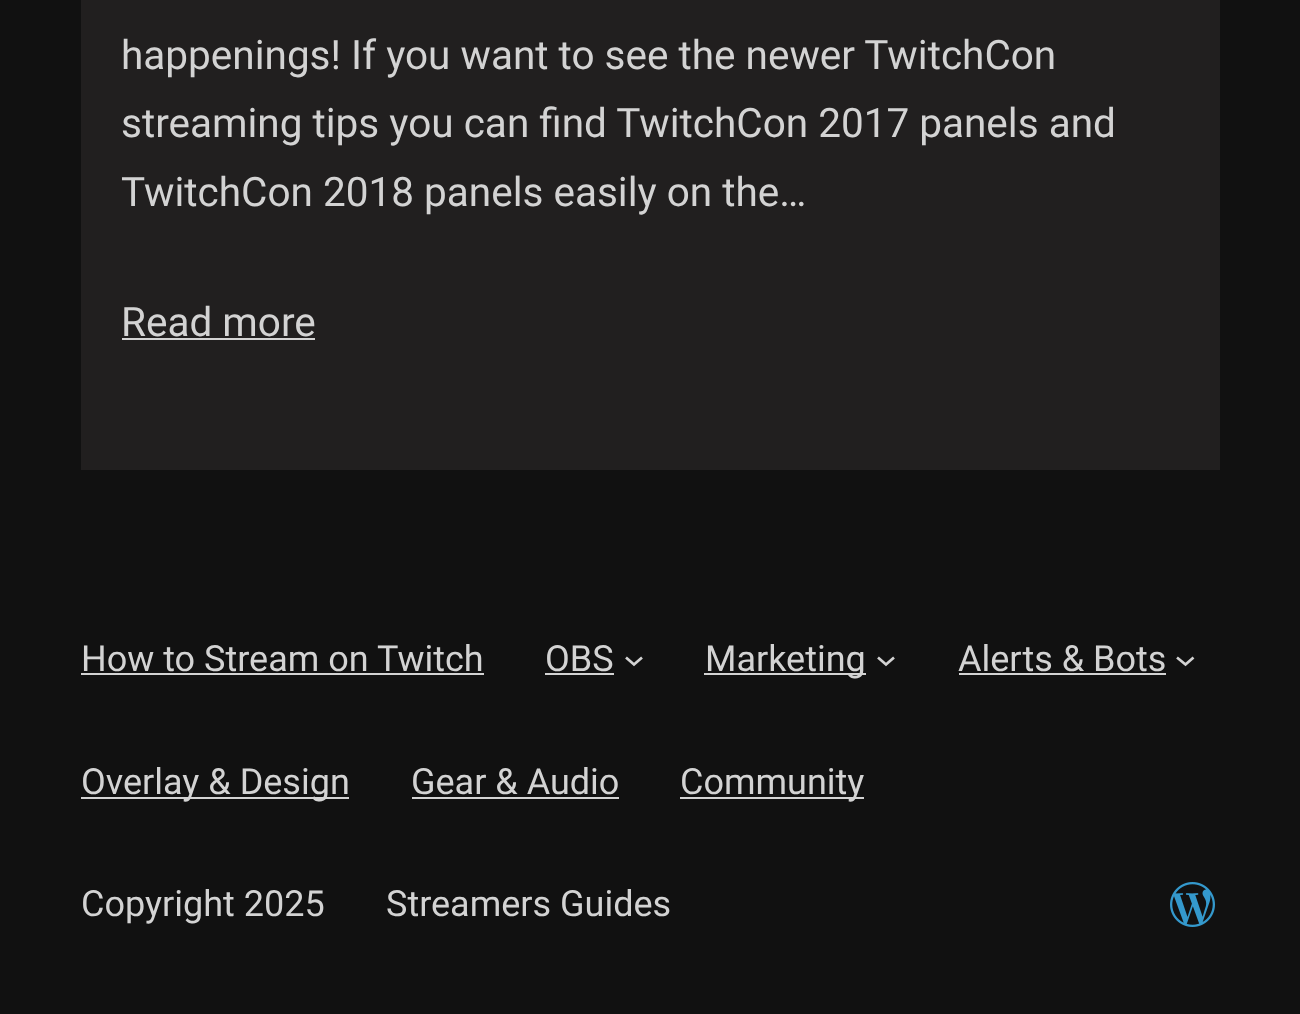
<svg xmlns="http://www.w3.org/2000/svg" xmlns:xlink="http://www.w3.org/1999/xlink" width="1300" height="1014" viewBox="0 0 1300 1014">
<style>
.cls-1{font:40.5px Roboto;fill:#d3d3d3}
.cls-2{font:36px Roboto;fill:#d3d3d3}
</style>
<rect width="100%" height="100%" fill="#111111"/>
<rect fill="#211f1f" x="81" y="0" width="1139" height="470"/>
<rect fill="#d3d3d3" x="122" y="338" width="193" height="2"/>
<rect fill="#d3d3d3" x="81" y="673" width="403" height="2"/>
<rect fill="#d3d3d3" x="545" y="673" width="69" height="2"/>
<path fill="none" stroke="#d3d3d3" stroke-width="2.7" d="M626 657.5L634 664.5L642 657.5"/>
<rect fill="#d3d3d3" x="704" y="673" width="162" height="2"/>
<path fill="none" stroke="#d3d3d3" stroke-width="2.7" d="M878 657.5L886 664.5L894 657.5"/>
<rect fill="#d3d3d3" x="959" y="673" width="207" height="2"/>
<path fill="none" stroke="#d3d3d3" stroke-width="2.7" d="M1177 657.5L1185.5 664.5L1193.5 657.5"/>
<rect fill="#d3d3d3" x="81" y="797" width="268" height="2"/>
<rect fill="#d3d3d3" x="412" y="797" width="207" height="2"/>
<rect fill="#d3d3d3" x="680" y="797" width="184" height="2"/>
<image xlink:href="image0.png" x="1170" y="882" width="45" height="45"/>
<text class="cls-1"><tspan x="121" y="69">happenings! If you want to see the newer TwitchCon</tspan><tspan x="121" y="137">streaming tips you can find TwitchCon 2017 panels and</tspan><tspan x="121" y="206">TwitchCon 2018 panels easily on the…</tspan></text>
<text class="cls-1" x="121" y="336">Read more</text>
<text class="cls-2" x="81" y="671">How to Stream on Twitch</text>
<text class="cls-2" x="545" y="671">OBS</text>
<text class="cls-2" x="705" y="671">Marketing</text>
<text class="cls-2" x="958" y="671">Alerts &amp; Bots</text>
<text class="cls-2" x="81" y="794">Overlay &amp; Design</text>
<text class="cls-2" x="411" y="794">Gear &amp; Audio</text>
<text class="cls-2" x="680" y="794">Community</text>
<text class="cls-2" x="81" y="916">Copyright 2025</text>
<text class="cls-2" x="386" y="916">Streamers Guides</text>
</svg>
